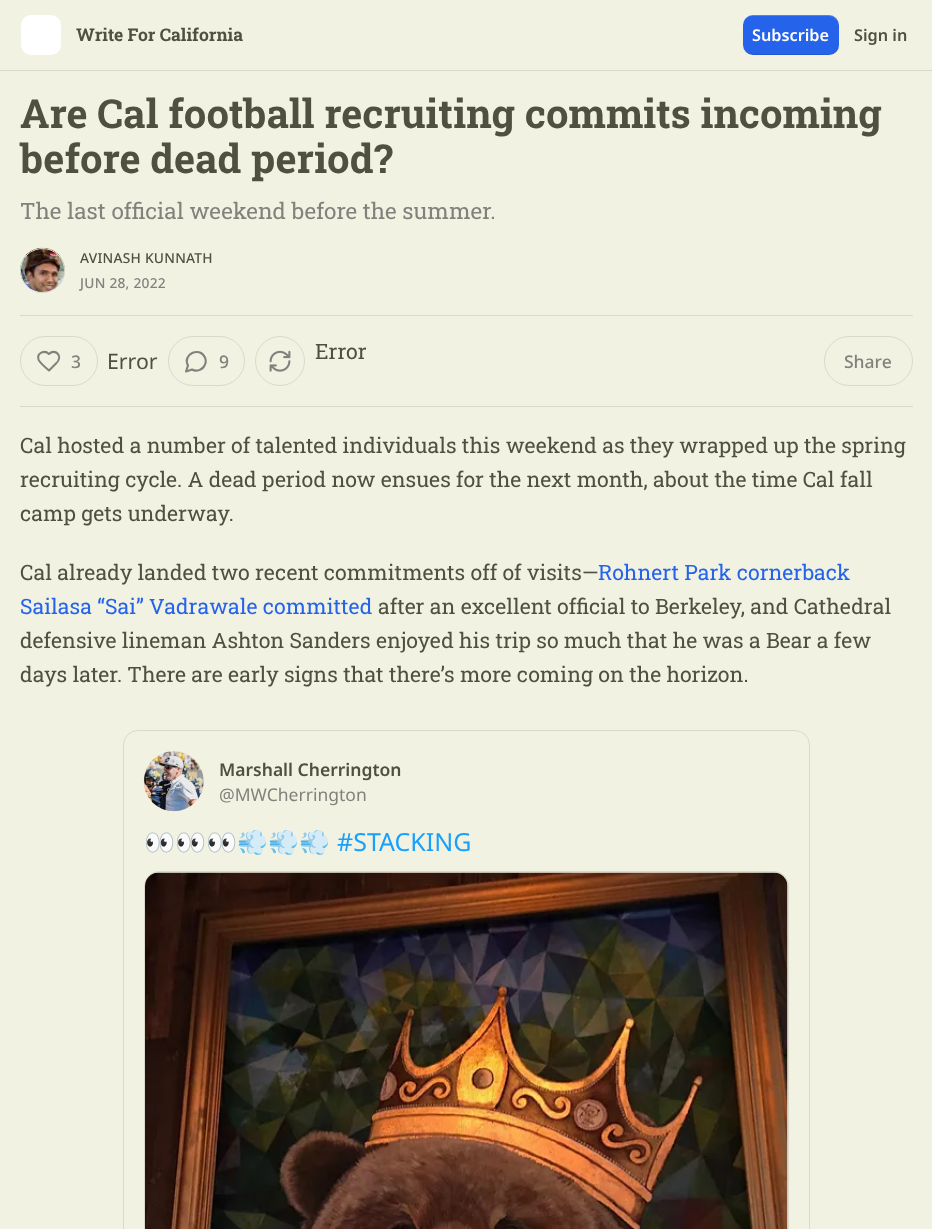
<svg xmlns="http://www.w3.org/2000/svg" xmlns:xlink="http://www.w3.org/1999/xlink" width="932" height="1229" viewBox="0 0 932 1229">
<style>
.cls-1{font:bold 17.5px Roboto Slab;fill:#505041}
.cls-2{font:600 16.25px Noto Sans;fill:#ffffff}
.cls-3{font:600 16.25px Noto Sans;fill:#505041}
.cls-4{font:bold 40px Roboto Slab;fill:#505041}
.cls-5{font:22.5px Roboto Slab;fill:#81827c}
.cls-6{font:500 13.75px Noto Sans;letter-spacing:0.25px;fill:#505041}
.cls-7{font:500 13.75px Noto Sans;letter-spacing:0.25px;fill:#81827c}
.cls-8{font:500 17.5px Noto Sans;fill:#81827c}
.cls-9{font:21.25px Noto Sans;fill:#505041}
.cls-10{font:21.25px Roboto Slab;fill:#505041}
.cls-11{font:21.25px Roboto Slab;fill:#2563eb}
.cls-12{font:600 17.5px Noto Sans;fill:#505041}
.cls-13{font:17.5px Noto Sans;fill:#81827c}
.cls-14{font:25px Noto Color Emoji;fill:#505041}
.cls-15{font:25px Noto Sans;fill:#18a0fb}
</style>
<rect width="100%" height="100%" fill="#f2f2e3"/>
<rect fill="#dadacc" x="0" y="70" width="932" height="1"/>
<rect fill="#ffffff" x="21" y="15" width="40" height="40" rx="10"/>
<rect fill="#2563eb" x="743" y="15" width="96" height="40" rx="10"/>
<path fill="#000000" fill-opacity="0.1" d="M744 50C746 53 749 55 753 55H829C835 55 839 51 839 45V44C839 49 834 54 829 54H752C749 54 746 52 744 50Z"/>
<path fill="#ffffff" fill-opacity="0.2" d="M752 16H829C834 16 839 21 839 26V25C839 19 835 15 829 15H753C749 15 746 17 744 20C746 18 749 16 752 16Z"/>
<circle fill="none" stroke="#dadacc" cx="42.5" cy="270.5" r="22"/>
<image xlink:href="image0.png" x="20" y="247" width="45" height="46"/>
<circle fill="none" stroke="#dadacc" cx="42.5" cy="270.5" r="22"/>
<rect fill="#dadacc" x="20" y="315" width="893" height="1"/>
<rect fill="#dadacc" x="20" y="406" width="893" height="1"/>
<rect fill="none" stroke="#dadacc" x="20.5" y="336.5" width="77" height="49" rx="24.5"/>
<path fill="none" stroke="#81827c" stroke-width="2.1" stroke-linecap="round" stroke-linejoin="round" d="M56 363.5C64 356 55 348 49 354C44.5 349.5 36.5 353 38.5 359.5C39.5 362.5 46 368 49 370.5Z"/>
<rect fill="none" stroke="#dadacc" x="168.5" y="336.5" width="76" height="49" rx="24.5"/>
<path fill="none" stroke="#81827c" stroke-width="2.1" stroke-linecap="round" stroke-linejoin="round" d="M192 369.5C196.5 372 202.5 370 204.5 365.5C206 363 206 360 205 357.5C199.5 346 182 354.5 188 365.5L186 371.5Z"/>
<circle fill="none" stroke="#dadacc" cx="280" cy="361" r="24.5"/>
<image xlink:href="image1.png" x="269" y="350" width="22" height="22"/>
<rect fill="none" stroke="#dadacc" x="824.5" y="336.5" width="88" height="49" rx="24.5"/>
<rect fill="none" stroke="#dadacc" x="123.5" y="730.5" width="686" height="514" rx="14.5"/>
<image xlink:href="image2.png" x="143" y="751" width="61" height="61"/>
<rect fill="none" stroke="#dadacc" x="144.5" y="871.5" width="644" height="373" rx="14.5"/>
<image xlink:href="image3.png" x="145" y="872" width="643" height="357"/>
<text class="cls-1" x="76" y="41">Write For California</text>
<text class="cls-2" x="752" y="41">Subscribe</text>
<text class="cls-3" x="854" y="41">Sign in</text>
<text class="cls-4"><tspan x="20" y="128">Are Cal football recruiting commits incoming</tspan><tspan x="20" y="173">before dead period?</tspan></text>
<text class="cls-5" x="20" y="219">The last official weekend before the summer.</text>
<text class="cls-6" x="80" y="263">AVINASH KUNNATH</text>
<text class="cls-7" x="80" y="288">JUN 28, 2022</text>
<text class="cls-8" x="71" y="368">3</text>
<text class="cls-9" x="107" y="369">Error</text>
<text class="cls-8" x="219" y="368">9</text>
<text class="cls-10" x="315" y="359">Error</text>
<text class="cls-8" x="844" y="368">Share</text>
<text class="cls-10"><tspan x="20" y="453">Cal hosted a number of talented individuals this weekend as they wrapped up the spring</tspan><tspan x="20" y="487">recruiting cycle. A dead period now ensues for the next month, about the time Cal fall</tspan><tspan x="20" y="521">camp gets underway.</tspan></text>
<text class="cls-10" x="20" y="580">Cal already landed two recent commitments off of visits—</text>
<text class="cls-11" x="598" y="580">Rohnert Park cornerback</text>
<text class="cls-11" x="20" y="614">Sailasa “Sai” Vadrawale committed</text>
<text class="cls-10" x="378" y="614">after an excellent official to Berkeley, and Cathedral</text>
<text class="cls-10"><tspan x="20" y="648">defensive lineman Ashton Sanders enjoyed his trip so much that he was a Bear a few</tspan><tspan x="20" y="682">days later. There are early signs that there’s more coming on the horizon.</tspan></text>
<text class="cls-12" x="219" y="776">Marshall Cherrington</text>
<text class="cls-13" x="219" y="801">@MWCherrington</text>
<text class="cls-14" x="144" y="851">👀👀👀💨💨💨</text>
<text class="cls-15" x="337" y="851">#STACKING</text>
</svg>
